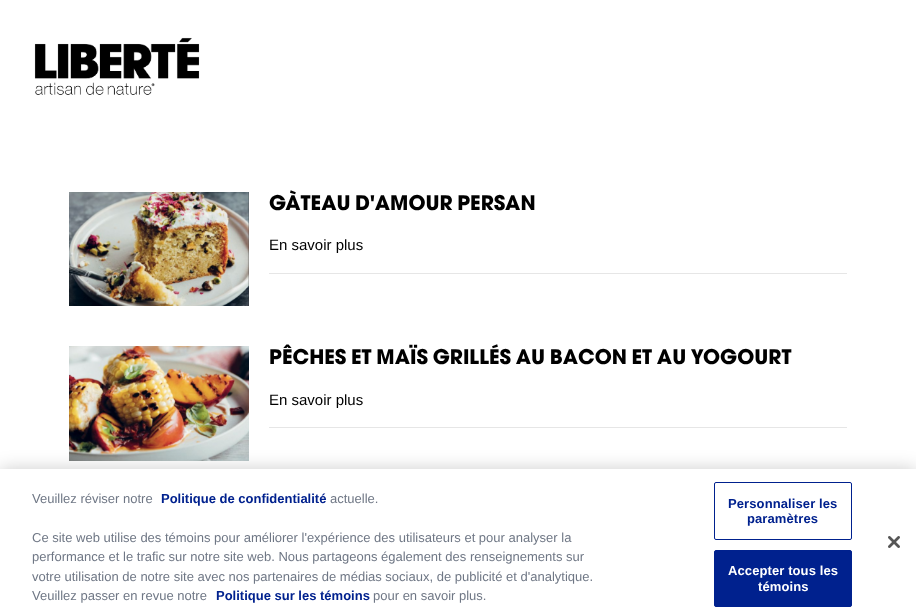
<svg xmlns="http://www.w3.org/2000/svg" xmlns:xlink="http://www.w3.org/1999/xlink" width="916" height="616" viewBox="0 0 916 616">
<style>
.cls-1{font:bold 20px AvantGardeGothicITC;fill:#000000}
.cls-2{font:15px Liberation Sans;fill:#000000}
.cls-3{font:13px Liberation Sans;fill:#6f7785}
.cls-4{font:bold 13px Liberation Sans;fill:#00218e}
.cls-5{font:bold 13px Liberation Sans;letter-spacing:0.1px;fill:#00218e}
.cls-6{font:bold 13px Liberation Sans;letter-spacing:0.1px;fill:#ffffff}
</style>
<rect width="100%" height="100%" fill="#ffffff"/>
<image xlink:href="image0.png" x="34" y="37" width="166" height="58"/>
<image xlink:href="image1.png" x="69" y="192" width="180" height="114"/>
<rect fill="#e6e6e6" x="269" y="273" width="578" height="1"/>
<image xlink:href="image2.png" x="69" y="346" width="180" height="115"/>
<rect fill="#e6e6e6" x="269" y="427" width="578" height="1"/>
<rect fill="#000000" fill-opacity="0.2" filter="blur(9px)" x="0" y="469" width="916" height="147"/>
<rect fill="#ffffff" x="0" y="469" width="916" height="147"/>
<rect fill="none" stroke="#00218e" x="714.5" y="482.5" width="137" height="57" rx="1.5"/>
<rect fill="#00218e" stroke="#00218e" x="714.5" y="550.5" width="137" height="56" rx="1.5"/>
<image xlink:href="image3.png" x="888" y="536" width="12" height="12"/>
<text class="cls-1" x="269" y="210">GÀTEAU D'AMOUR PERSAN</text>
<text class="cls-2" x="269" y="250">En savoir plus</text>
<text class="cls-1" x="269" y="364">PÊCHES ET MAÏS GRILLÉS AU BACON ET AU YOGOURT</text>
<text class="cls-2" x="269" y="405">En savoir plus</text>
<text class="cls-3" x="32" y="503">Veuillez réviser notre</text>
<text class="cls-4" x="161" y="503">Politique de confidentialité</text>
<text class="cls-3" x="330" y="503">actuelle.</text>
<text class="cls-3"><tspan x="32" y="542">Ce site web utilise des témoins pour améliorer l'expérience des utilisateurs et pour analyser la</tspan><tspan x="32" y="561">performance et le trafic sur notre site web. Nous partageons également des renseignements sur</tspan><tspan x="32" y="581">votre utilisation de notre site avec nos partenaires de médias sociaux, de publicité et d'analytique.</tspan><tspan x="32" y="600">Veuillez passer en revue notre</tspan></text>
<text class="cls-4" x="216" y="600">Politique sur les témoins</text>
<text class="cls-3" x="373" y="600">pour en savoir plus.</text>
<text class="cls-5" x="728" y="508">Personnaliser les</text>
<text class="cls-5" x="747" y="523">paramètres</text>
<text class="cls-6" x="728" y="575">Accepter tous les</text>
<text class="cls-6" x="758" y="591">témoins</text>
</svg>
